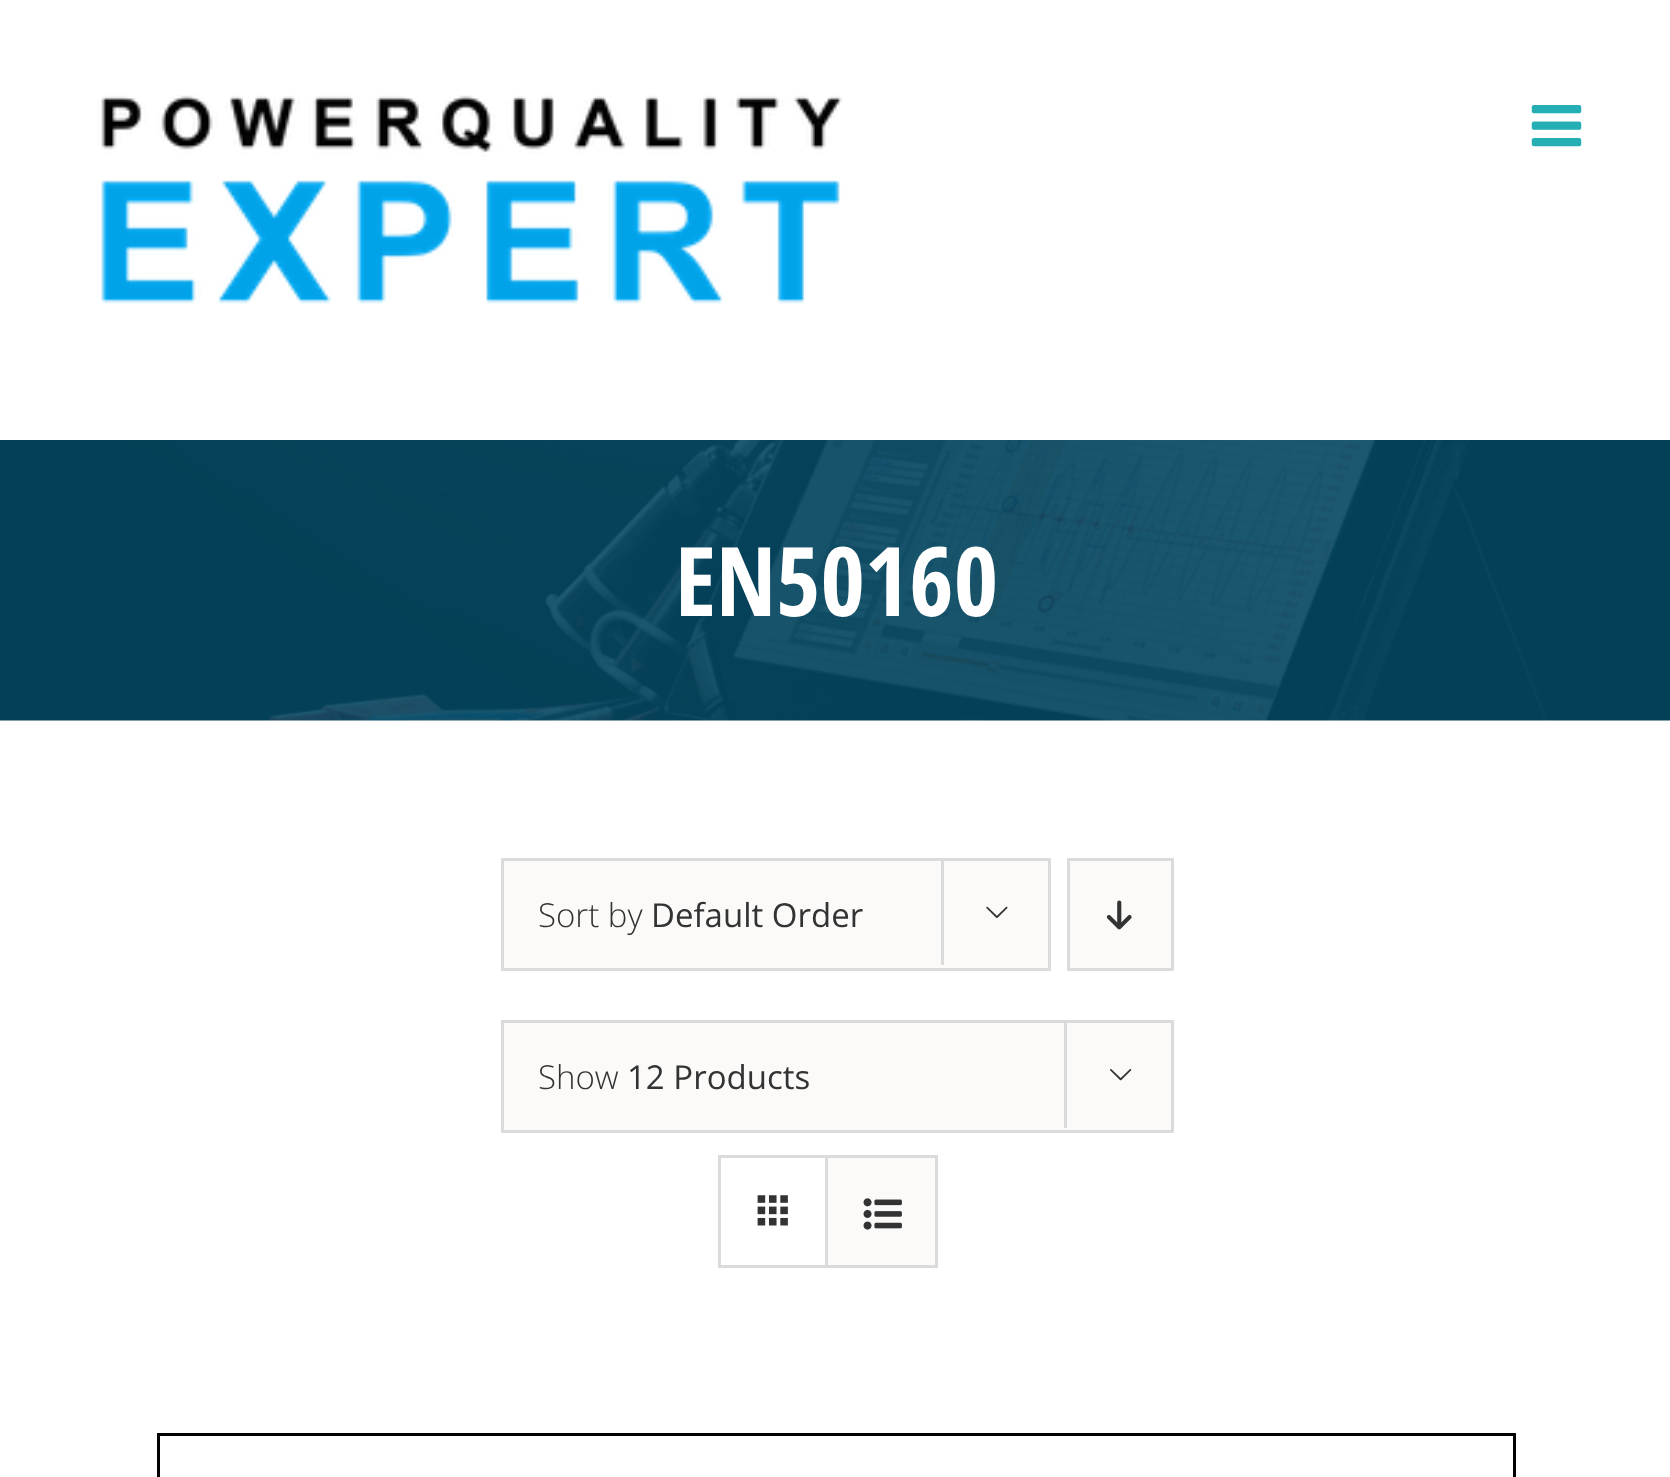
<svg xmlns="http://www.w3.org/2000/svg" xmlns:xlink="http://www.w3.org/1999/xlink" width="1670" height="1477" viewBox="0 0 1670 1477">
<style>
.cls-1{font:bold 96px Open Sans Condensed;fill:#ffffff}
.cls-2{font:300 33px Open Sans;fill:#333333}
.cls-3{font:33px Open Sans;fill:#333333}
</style>
<rect width="100%" height="100%" fill="#ffffff"/>
<image xlink:href="image0.png" x="97" y="95" width="746" height="209"/>
<image xlink:href="image1.png" x="1531" y="105" width="51" height="42"/>
<image xlink:href="image2.png" x="0" y="440" width="1670" height="281"/>
<rect fill="#fbfaf9" stroke="#dbdbdb" stroke-width="3" x="502.5" y="859.5" width="547" height="110"/>
<rect fill="#dbdbdb" x="941" y="858" width="3" height="107"/>
<image xlink:href="image3.png" x="986" y="906" width="22" height="13"/>
<rect fill="#fbfaf9" stroke="#dbdbdb" stroke-width="3" x="1068.5" y="859.5" width="104" height="110"/>
<image xlink:href="image4.png" x="1106" y="900" width="26" height="30"/>
<rect fill="#fbfaf9" stroke="#dbdbdb" stroke-width="3" x="502.5" y="1021.5" width="670" height="110"/>
<rect fill="#dbdbdb" x="1064" y="1020" width="3" height="108"/>
<image xlink:href="image5.png" x="1110" y="1069" width="22" height="12"/>
<rect fill="none" stroke="#dbdbdb" stroke-width="3" x="719.5" y="1156.5" width="217" height="110"/>
<rect fill="#dbdbdb" x="825" y="1158" width="3" height="107"/>
<image xlink:href="image6.png" x="757" y="1195" width="31" height="31"/>
<rect fill="#fbfaf9" x="828" y="1158" width="107" height="107"/>
<image xlink:href="image7.png" x="863" y="1198" width="39" height="32"/>
<rect fill="#000000" x="157" y="1433" width="1358" height="3"/>
<rect fill="#000000" x="1513" y="1433" width="3" height="44"/>
<rect fill="#000000" x="157" y="1433" width="3" height="44"/>
<text class="cls-1" x="675" y="616">EN50160</text>
<text class="cls-2" x="538" y="927">Sort by</text>
<text class="cls-3" x="651" y="927">Default Order</text>
<text class="cls-2" x="538" y="1089">Show</text>
<text class="cls-3" x="627" y="1089">12 Products</text>
</svg>
